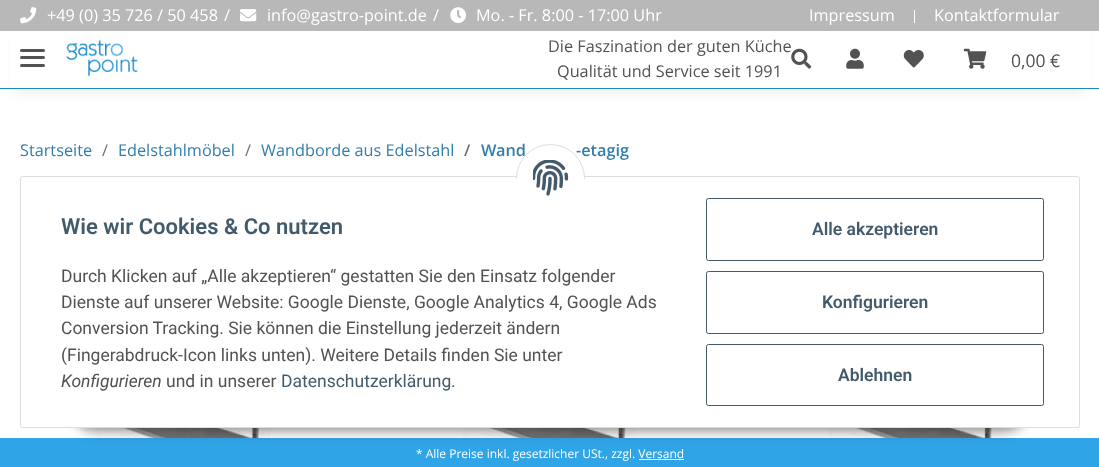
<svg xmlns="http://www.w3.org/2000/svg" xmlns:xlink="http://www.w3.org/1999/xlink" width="1099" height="467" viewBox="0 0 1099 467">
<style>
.cls-1{font:16.25px Open Sans;fill:#ffffff}
.cls-2{font:16.25px Open Sans;fill:#525252}
.cls-3{font:17.5px Open Sans;fill:#525252}
.cls-4{font:16.25px Open Sans;fill:#317eac}
.cls-5{font:16.25px Open Sans;fill:#707070}
.cls-6{font:600 16.25px Open Sans;fill:#707070}
.cls-7{font:600 16.25px Open Sans;fill:#317eac}
.cls-8{font:600 22px Roboto;fill:#435a6b}
.cls-9{font:17.5px Roboto;fill:#525252}
.cls-10{font:italic 17.5px Roboto;fill:#525252}
.cls-11{font:17.5px Roboto;fill:#435a6b}
.cls-12{font:600 17.5px Roboto;fill:#435a6b}
.cls-13{font:12px Open Sans;fill:#ffffff}
</style>
<rect width="100%" height="100%" fill="#ffffff"/>
<rect fill="#000000" fill-opacity="0.06" filter="blur(5.5px)" x="15" y="35" width="1070" height="59"/>
<rect fill="#ffffff" x="10" y="31" width="1080" height="57"/>
<rect fill="#b8b8b8" x="0" y="0" width="1099" height="31"/>
<image xlink:href="image0.png" x="20" y="7" width="17" height="17"/>
<image xlink:href="image1.png" x="240" y="9" width="17" height="13"/>
<image xlink:href="image2.png" x="450" y="7" width="16" height="16"/>
<rect fill="#ffffff" x="914" y="10" width="1" height="13"/>
<rect fill="#525252" x="20" y="56" width="25" height="3" rx="1.5"/>
<rect fill="#525252" x="20" y="49" width="25" height="3" rx="1.5"/>
<rect fill="#525252" x="20" y="64" width="25" height="3" rx="1.5"/>
<image xlink:href="image3.png" x="66" y="40" width="72" height="37"/>
<image xlink:href="image4.png" x="791" y="48" width="21" height="21"/>
<image xlink:href="image5.png" x="846" y="48" width="18" height="21"/>
<image xlink:href="image6.png" x="903" y="50" width="21" height="18"/>
<image xlink:href="image7.png" x="963" y="48" width="24" height="21"/>
<rect fill="#178acc" x="0" y="88" width="1099" height="1"/>
<image xlink:href="image8.png" x="95" y="428" width="175" height="10"/>
<image xlink:href="image9.png" x="461" y="428" width="175" height="10"/>
<image xlink:href="image10.png" x="827" y="428" width="176" height="10"/>
<rect fill="#2fa4e7" x="0" y="438" width="1099" height="29"/>
<rect fill="#000000" fill-opacity="0.45" filter="blur(6px)" x="74" y="391" width="952" height="40" rx="20"/>
<rect fill="#ffffff" stroke="#dddddd" x="20.5" y="176.5" width="1059" height="251" rx="2"/>
<rect fill="none" stroke="#435a6b" x="706.5" y="198.5" width="337" height="62" rx="2"/>
<rect fill="none" stroke="#435a6b" x="706.5" y="271.5" width="337" height="62" rx="2"/>
<rect fill="none" stroke="#435a6b" x="706.5" y="344.5" width="337" height="61" rx="2"/>
<rect fill="#ffffff" x="639" y="459" width="45" height="1"/>
<text class="cls-1" x="47" y="21">+49 (0) 35 726 / 50 458</text>
<text class="cls-1" x="224" y="21">/</text>
<text class="cls-1" x="267" y="21">info@gastro-point.de</text>
<text class="cls-1" x="433" y="21">/</text>
<text class="cls-1" x="476" y="21">Mo. - Fr. 8:00 - 17:00 Uhr</text>
<text class="cls-1" x="809" y="21">Impressum</text>
<text class="cls-1" x="934" y="21">Kontaktformular</text>
<text class="cls-2" x="548" y="52">Die Faszination der guten Küche</text>
<text class="cls-2" x="557" y="77">Qualität und Service seit 1991</text>
<text class="cls-3" x="1011" y="67">0,00 €</text>
<text class="cls-4" x="20" y="156">Startseite</text>
<text class="cls-5" x="102" y="156">/</text>
<text class="cls-4" x="118" y="156">Edelstahlmöbel</text>
<text class="cls-5" x="245" y="156">/</text>
<text class="cls-4" x="261" y="156">Wandborde aus Edelstahl</text>
<text class="cls-6" x="464" y="156">/</text>
<text class="cls-7" x="481" y="156">Wand</text>
<text class="cls-7" x="576" y="156">-etagig</text>
<circle fill="#ffffff" stroke="#dddddd" cx="550.5" cy="178.5" r="34"/>
<rect fill="#ffffff" x="516" y="179" width="69" height="34"/>
<image xlink:href="image11.png" x="533" y="160" width="36" height="36"/>
<text class="cls-8" x="61" y="234">Wie wir Cookies &amp; Co nutzen</text>
<text class="cls-9"><tspan x="61" y="282">Durch Klicken auf „Alle akzeptieren“ gestatten Sie den Einsatz folgender</tspan><tspan x="61" y="308">Dienste auf unserer Website: Google Dienste, Google Analytics 4, Google Ads</tspan><tspan x="61" y="334">Conversion Tracking. Sie können die Einstellung jederzeit ändern</tspan><tspan x="61" y="361">(Fingerabdruck-Icon links unten). Weitere Details finden Sie unter</tspan></text>
<text class="cls-10" x="61" y="387">Konfigurieren</text>
<text class="cls-9" x="166" y="387">und in unserer</text>
<text class="cls-11" x="281" y="387">Datenschutzerklärung</text>
<text class="cls-9" x="451" y="387">.</text>
<text class="cls-12" x="812" y="235">Alle akzeptieren</text>
<text class="cls-12" x="822" y="308">Konfigurieren</text>
<text class="cls-12" x="838" y="381">Ablehnen</text>
<text class="cls-13" x="416" y="458">* Alle Preise inkl. gesetzlicher USt., zzgl. Versand</text>
</svg>
